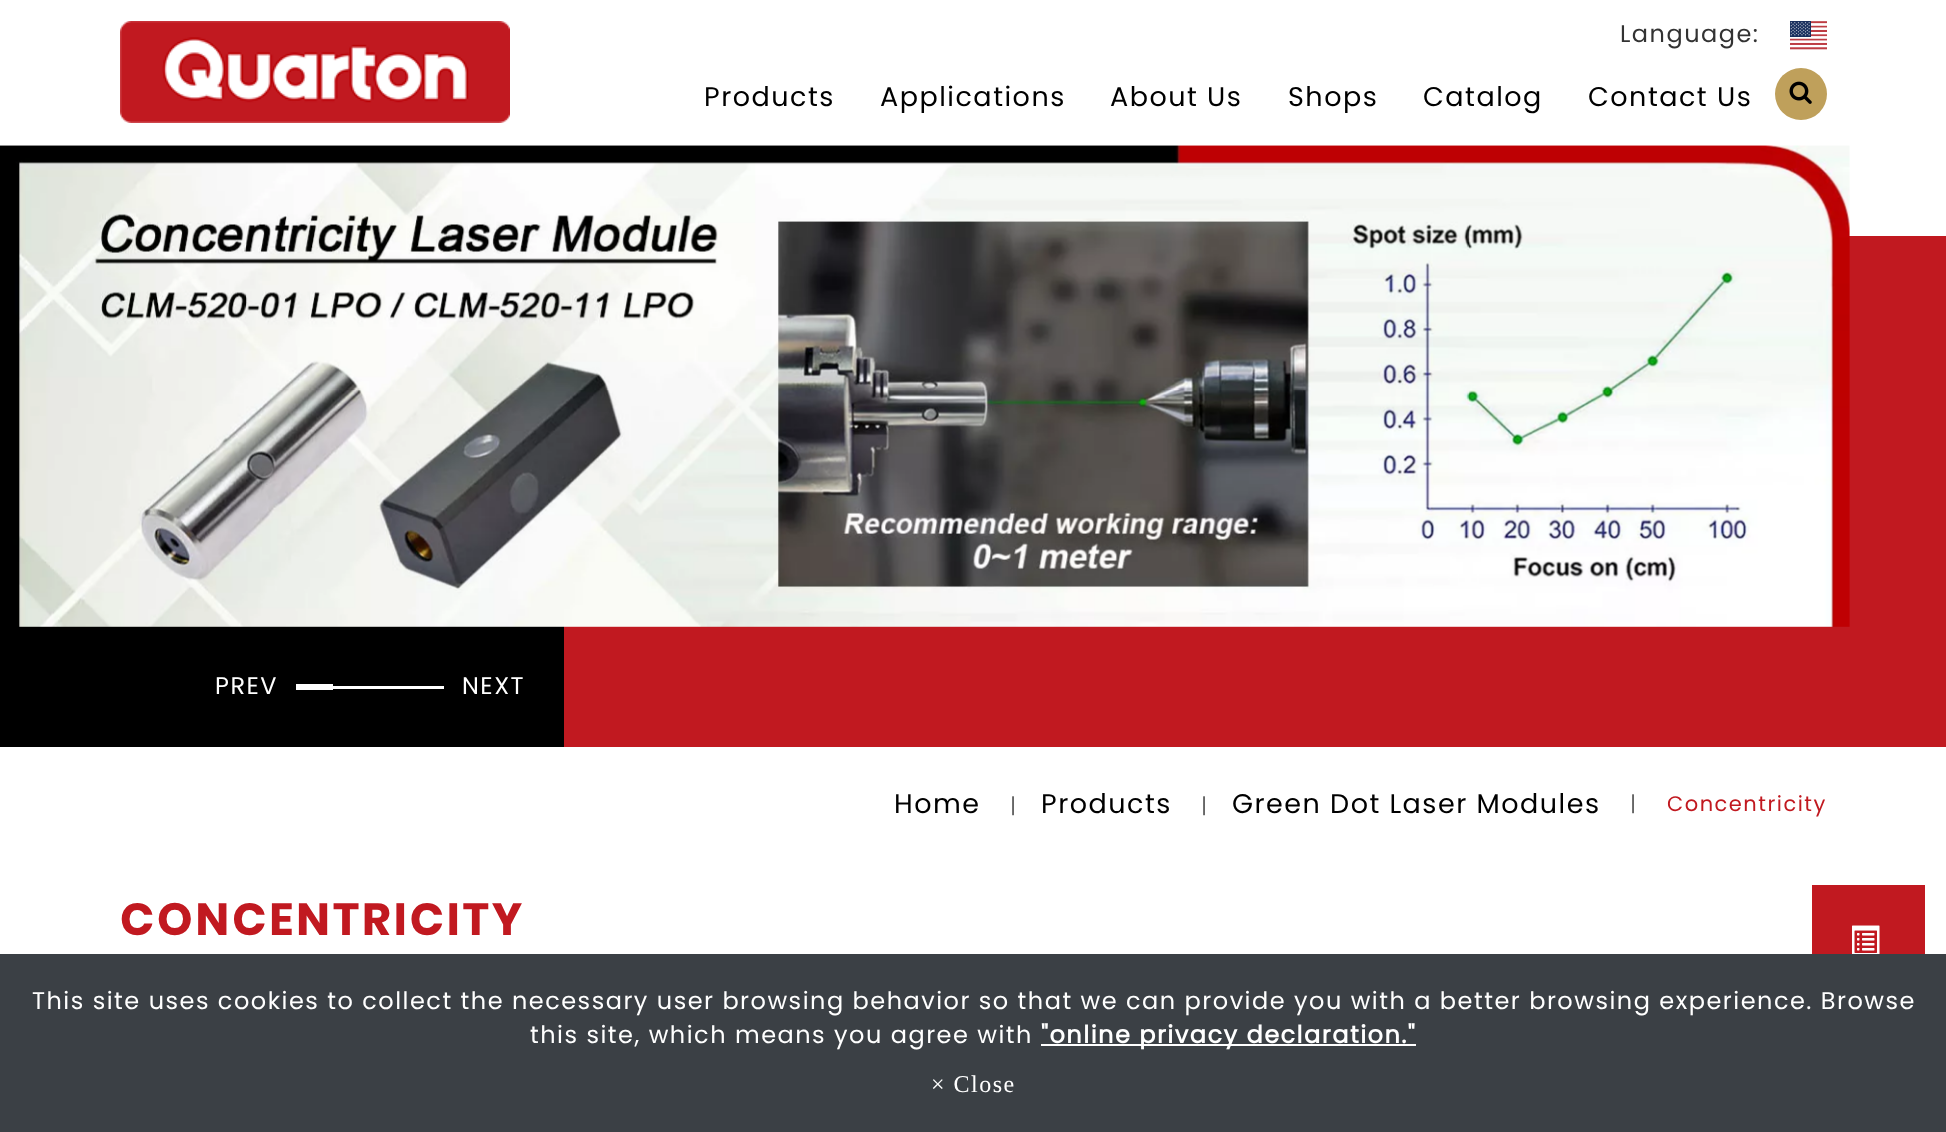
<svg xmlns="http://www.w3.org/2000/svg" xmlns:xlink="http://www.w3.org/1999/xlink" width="1946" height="1132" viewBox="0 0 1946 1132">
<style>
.cls-1{font:24px Poppins;letter-spacing:1.5px;fill:#333333}
.cls-2{font:27px Poppins;letter-spacing:1.5px;fill:#000000}
.cls-3{font:24px Poppins;letter-spacing:1.5px;fill:#ffffff}
.cls-4{font:21px Poppins;letter-spacing:1.5px;fill:#666666}
.cls-5{font:21px Poppins;letter-spacing:1.5px;fill:#c11920}
.cls-6{font:bold 45px Poppins;letter-spacing:3px;fill:#c11920}
.cls-7{font:bold 24px 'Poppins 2';letter-spacing:1.5px;fill:#ffffff}
.cls-8{font:24px Liberation Serif;letter-spacing:1.5px;fill:#ffffff}
</style>
<rect width="100%" height="100%" fill="#ffffff"/>
<image xlink:href="image0.png" x="120" y="21" width="390" height="102"/>
<image xlink:href="image1.png" x="1790" y="21" width="37" height="29"/>
<circle fill="#bfa05b" cx="1801" cy="94" r="26"/>
<image xlink:href="image2.png" x="1789" y="81" width="23" height="23"/>
<rect fill="#000000" x="0" y="626" width="564" height="121"/>
<rect fill="#c11920" x="564" y="236" width="1382" height="511"/>
<image xlink:href="image3.png" x="0" y="145" width="1850" height="482"/>
<rect fill="#ffffff" x="296" y="684" width="37" height="6"/>
<rect fill="#ffffff" x="333" y="686" width="111" height="3"/>
<rect fill="#c11920" x="1812" y="885" width="113" height="69"/>
<image xlink:href="image4.png" x="1852" y="925" width="28" height="29"/>
<rect fill="#3b4045" x="0" y="954" width="1946" height="178"/>
<rect fill="#ffffff" x="1041" y="1044" width="375" height="2"/>
<text class="cls-1" x="1620" y="42">Language:</text>
<text class="cls-2" x="704" y="106">Products</text>
<text class="cls-2" x="880" y="106">Applications</text>
<text class="cls-2" x="1110" y="106">About Us</text>
<text class="cls-2" x="1288" y="106">Shops</text>
<text class="cls-2" x="1423" y="106">Catalog</text>
<text class="cls-2" x="1588" y="106">Contact Us</text>
<text class="cls-3" x="215" y="694">PREV</text>
<text class="cls-3" x="462" y="694">NEXT</text>
<text class="cls-2" x="894" y="813">Home</text>
<text class="cls-4" x="1010" y="813">|</text>
<text class="cls-2" x="1041" y="813">Products</text>
<text class="cls-4" x="1201" y="813">|</text>
<text class="cls-2" x="1232" y="813">Green Dot Laser Modules</text>
<text class="cls-4" x="1630" y="811">|</text>
<text class="cls-5" x="1667" y="811">Concentricity</text>
<text class="cls-6" x="120" y="935">CONCENTRICITY</text>
<text class="cls-3" x="32" y="1009">This site uses cookies to collect the necessary user browsing behavior so that we can provide you with a better browsing experience. Browse</text>
<text class="cls-3" x="530" y="1043">this site, which means you agree with</text>
<text class="cls-7" x="1041" y="1043">"online privacy declaration."</text>
<text class="cls-8" x="931" y="1092">× Close</text>
</svg>
